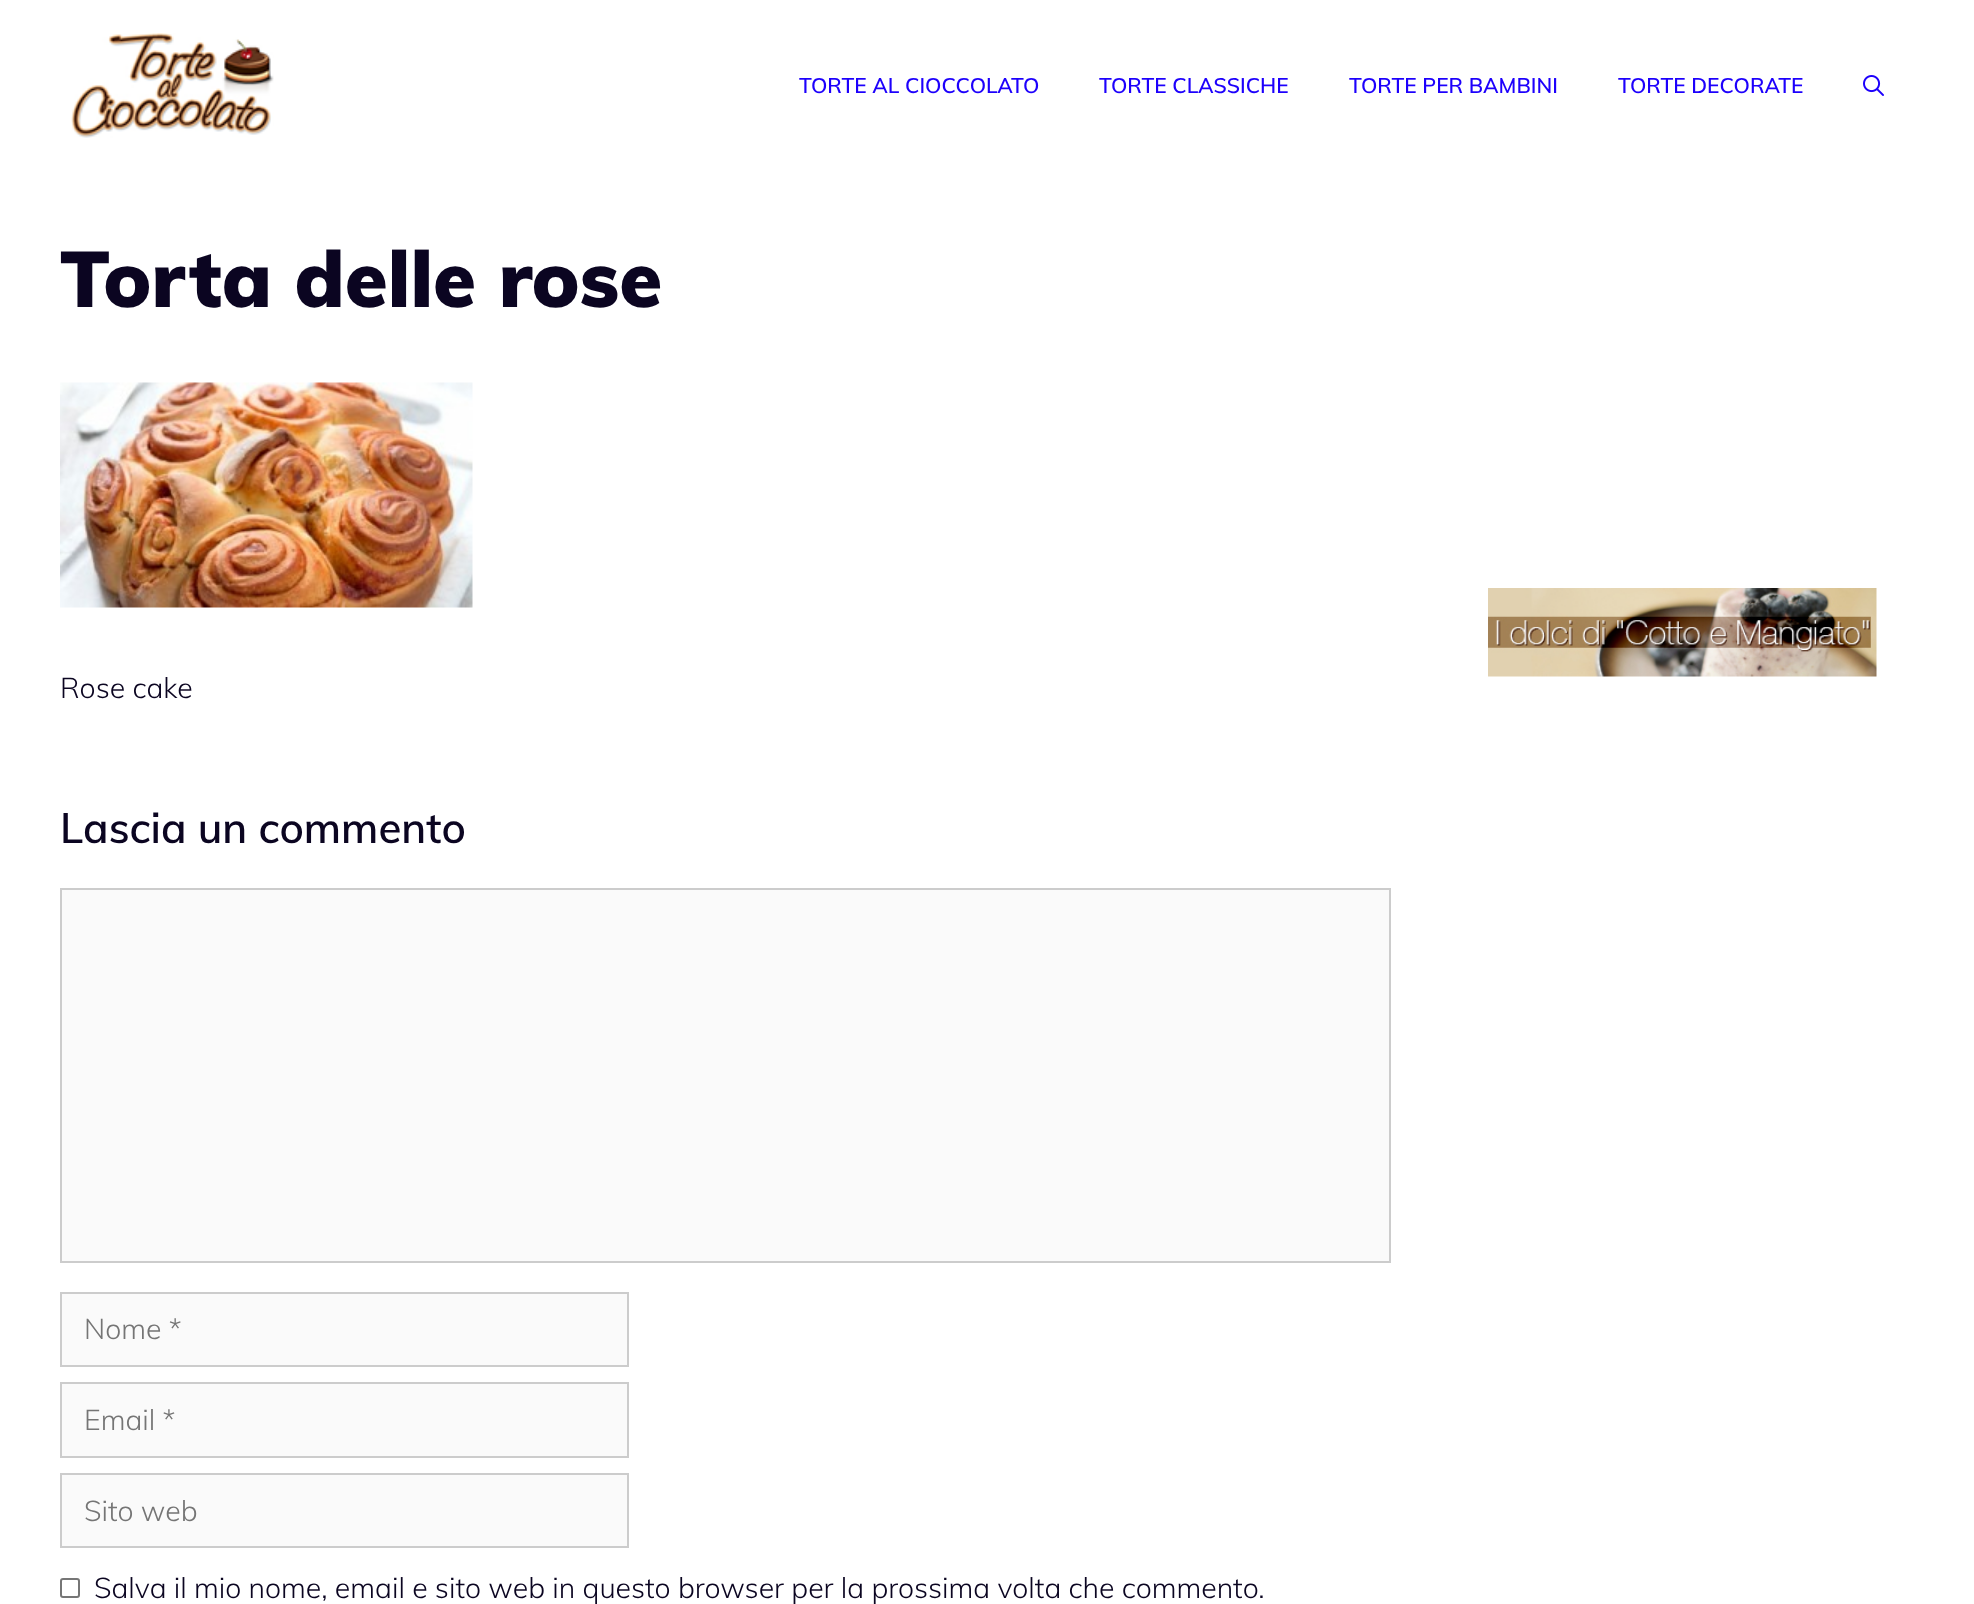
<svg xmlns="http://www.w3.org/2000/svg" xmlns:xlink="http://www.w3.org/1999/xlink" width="1974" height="1604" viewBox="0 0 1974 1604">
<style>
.cls-1{font:600 21px Muli;fill:#1d00fc}
.cls-2{font:900 78px Muli;fill:#0b0521}
.cls-3{font:300 28.5px Muli;fill:#0b0521}
.cls-4{font:600 42px Muli;fill:#0b0521}
.cls-5{font:300 28.5px Muli;fill:#757575}
</style>
<rect width="100%" height="100%" fill="#ffffff"/>
<image xlink:href="image0.png" x="71" y="33" width="203" height="105"/>
<image xlink:href="image1.png" x="1863" y="75" width="21" height="21"/>
<image xlink:href="image2.png" x="60" y="382" width="413" height="226"/>
<rect fill="#fafafa" stroke="#cccccc" stroke-width="2" x="61" y="889" width="1329" height="373"/>
<rect fill="#fafafa" stroke="#cccccc" stroke-width="2" x="61" y="1293" width="567" height="73"/>
<rect fill="#fafafa" stroke="#cccccc" stroke-width="2" x="61" y="1383" width="567" height="74"/>
<rect fill="#fafafa" stroke="#cccccc" stroke-width="2" x="61" y="1474" width="567" height="73"/>
<rect fill="none" stroke="#767676" stroke-width="2" x="61" y="1579" width="18" height="18" rx="2"/>
<image xlink:href="image3.png" x="1488" y="588" width="389" height="89"/>
<text class="cls-1" x="799" y="93">TORTE AL CIOCCOLATO</text>
<text class="cls-1" x="1099" y="93">TORTE CLASSICHE</text>
<text class="cls-1" x="1349" y="93">TORTE PER BAMBINI</text>
<text class="cls-1" x="1618" y="93">TORTE DECORATE</text>
<text class="cls-2" x="60" y="307">Torta delle rose</text>
<text class="cls-3" x="60" y="698">Rose cake</text>
<text class="cls-4" x="60" y="843">Lascia un commento</text>
<text class="cls-5" x="84" y="1339">Nome *</text>
<text class="cls-5" x="84" y="1430">Email *</text>
<text class="cls-5" x="84" y="1521">Sito web</text>
<text class="cls-3" x="94" y="1598">Salva il mio nome, email e sito web in questo browser per la prossima volta che commento.</text>
</svg>
